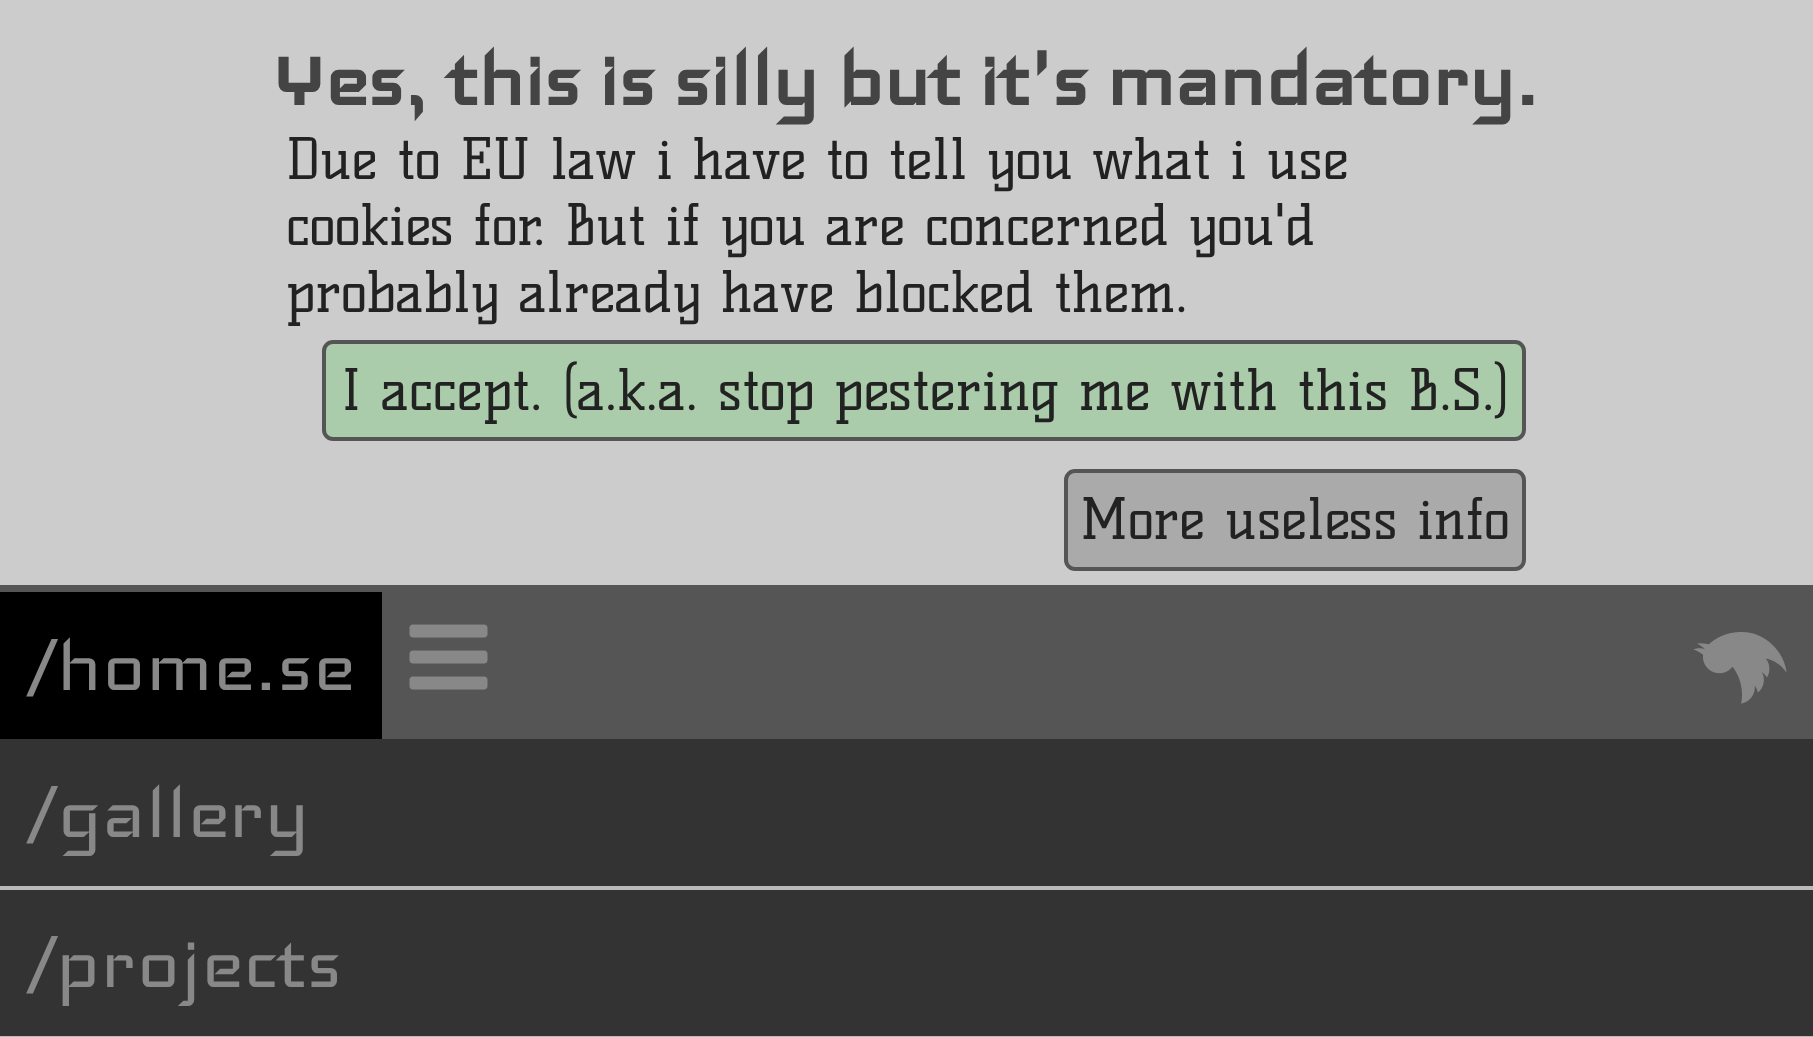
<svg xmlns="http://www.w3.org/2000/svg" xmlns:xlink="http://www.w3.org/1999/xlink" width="1813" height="1037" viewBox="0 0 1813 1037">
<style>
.cls-1{font:bold 93.3px Iceland;fill:#444444}
.cls-2{font:56px Kelly Slab;fill:#222222}
.cls-3{font:91px Iceland;fill:#888888}
</style>
<rect width="100%" height="100%" fill="#cccccc"/>
<rect fill="#aaccaa" stroke="#555555" stroke-width="4" x="324" y="342" width="1200" height="97" rx="9"/>
<rect fill="#aaaaaa" stroke="#555555" stroke-width="4" x="1066" y="471" width="458" height="98" rx="9"/>
<rect fill="#555555" x="0" y="585" width="1813" height="154"/>
<rect fill="#000000" x="0" y="592" width="382" height="147"/>
<image xlink:href="image0.png" x="409" y="624" width="79" height="66"/>
<image xlink:href="image1.png" x="1693" y="632" width="94" height="72"/>
<rect fill="#333333" x="0" y="739" width="1813" height="297"/>
<rect fill="#bbbbbb" x="0" y="886" width="1813" height="4"/>
<rect fill="#bbbbbb" x="0" y="1036" width="1813" height="1"/>
<text class="cls-1" x="272" y="105">Yes, this is silly but it's mandatory.</text>
<text class="cls-2"><tspan x="286" y="179">Due to EU law i have to tell you what i use</tspan><tspan x="286" y="245">cookies for. But if you are concerned you'd</tspan><tspan x="286" y="312">probably already have blocked them.</tspan></text>
<text class="cls-2" x="341" y="410">I accept. (a.k.a. stop pestering me with this B.S.)</text>
<text class="cls-2" x="1080" y="539">More useless info</text>
<text class="cls-3"><tspan x="28" y="690">/home.se</tspan><tspan x="28" y="837">/gallery</tspan><tspan x="28" y="987">/projects</tspan></text>
</svg>
